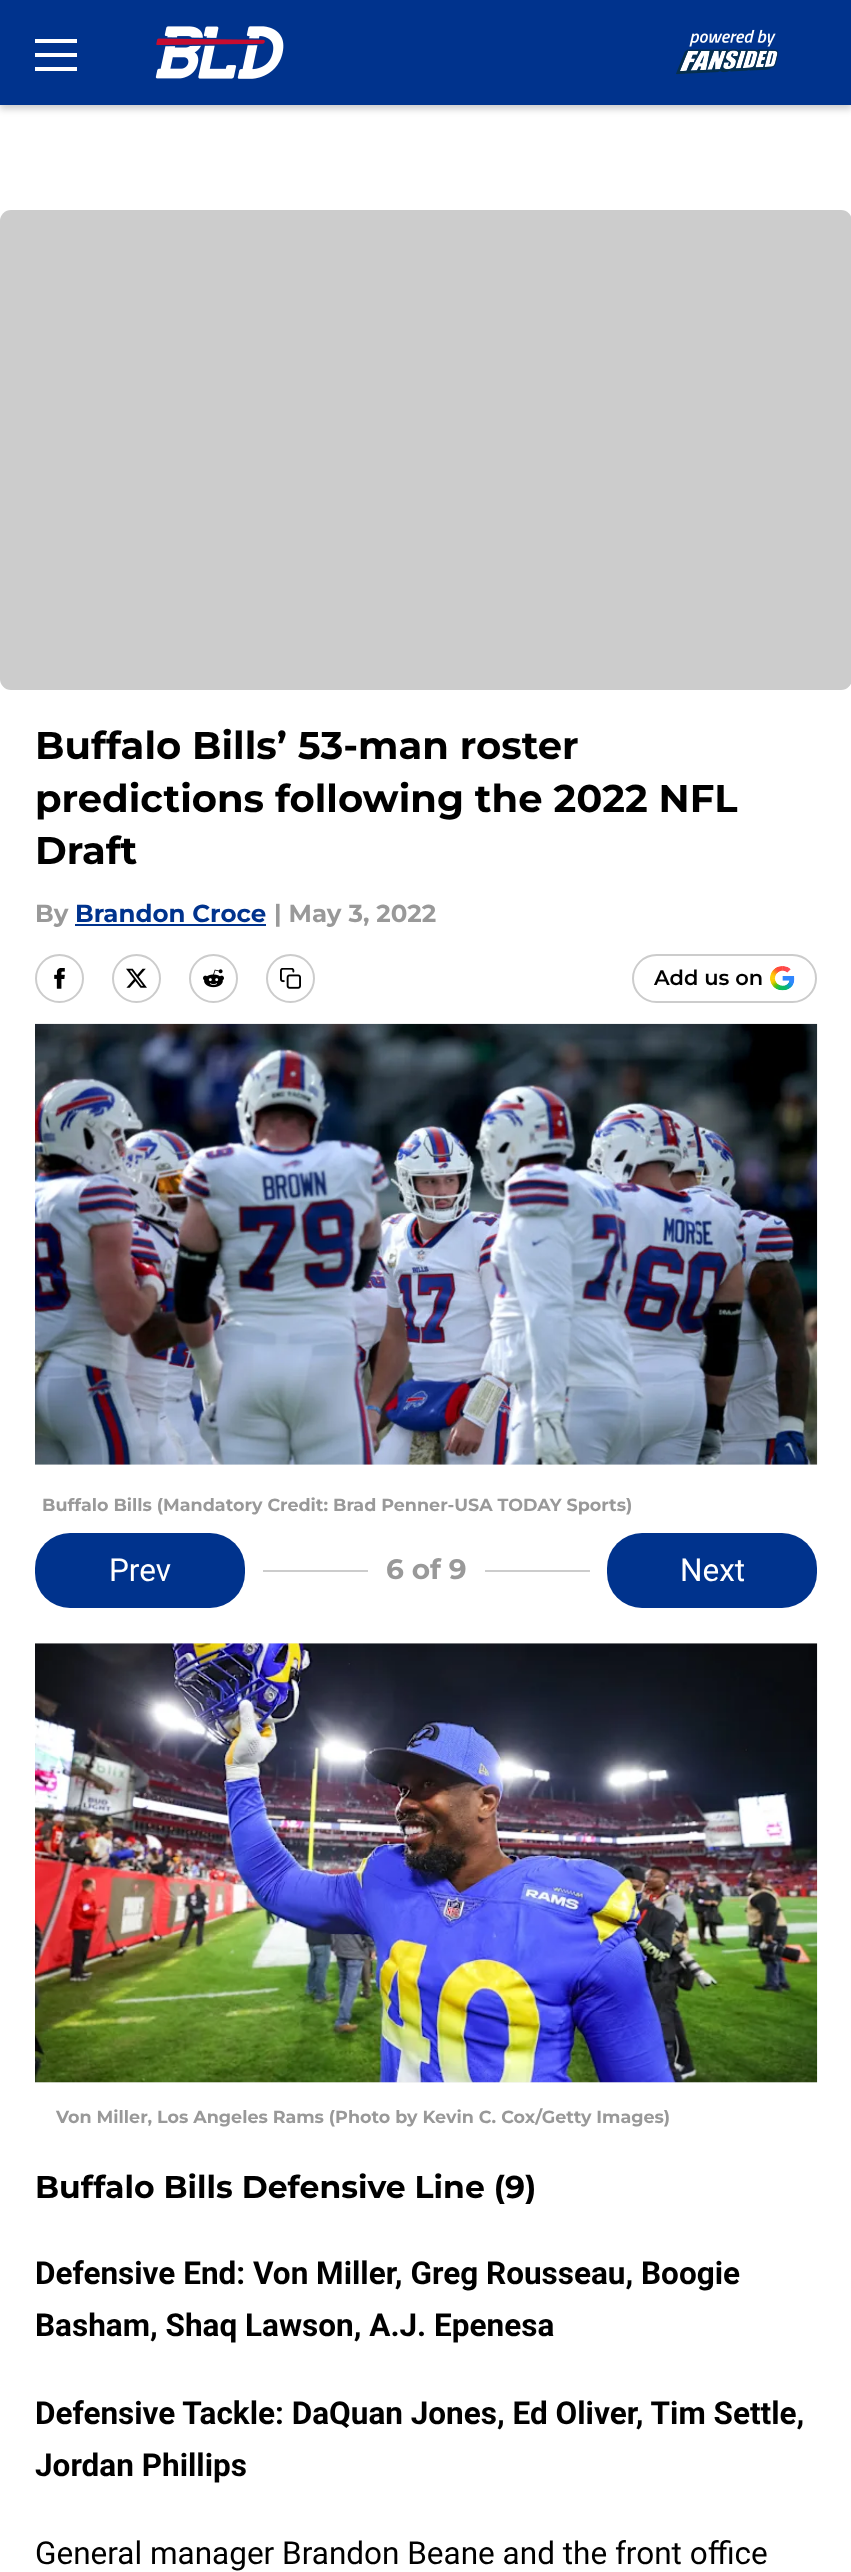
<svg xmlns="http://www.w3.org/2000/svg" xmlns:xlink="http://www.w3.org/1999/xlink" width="851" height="2572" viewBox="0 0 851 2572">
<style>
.cls-1{font:100 38.5px 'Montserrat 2';fill:#000000}
.cls-2{font:100 24.5px 'Montserrat 2';fill:#999999}
.cls-3{font:100 24.5px 'Montserrat 2';fill:#00338d}
.cls-4{font:100 21px Montserrat;fill:#000000}
.cls-5{font:100 17.5px 'Montserrat 2';fill:#999999}
.cls-6{font:31.5px Roboto;fill:#ffffff}
.cls-7{font:100 28px 'Montserrat 2';fill:#999999}
.cls-8{font:100 31.5px 'Montserrat 2';fill:#000000}
.cls-9{font:bold 31.5px Roboto;fill:#000000}
.cls-10{font:31.5px Roboto;fill:#000000}
</style>
<rect width="100%" height="100%" fill="#ffffff"/>
<rect fill="#000000" fill-opacity="0.2" filter="blur(3.5px)" x="0" y="4" width="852" height="105"/>
<rect fill="#00338d" x="0" y="0" width="851" height="105"/>
<rect fill="#ffffff" x="35" y="39" width="42" height="4"/>
<rect fill="#ffffff" x="35" y="53" width="42" height="4"/>
<rect fill="#ffffff" x="35" y="67" width="42" height="4"/>
<image xlink:href="image0.png" x="155" y="26" width="129" height="53"/>
<image xlink:href="image1.png" x="676" y="29" width="103" height="46"/>
<rect fill="#cccccc" x="0" y="210" width="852" height="480" rx="11"/>
<rect fill="#00338d" x="75" y="924" width="191" height="2"/>
<circle fill="none" stroke="#cccccc" stroke-width="2" cx="59.5" cy="978.5" r="23.5"/>
<image xlink:href="image2.png" x="54" y="968" width="11" height="21"/>
<circle fill="none" stroke="#cccccc" stroke-width="2" cx="136.5" cy="978.5" r="23.5"/>
<image xlink:href="image3.png" x="126" y="968" width="21" height="20"/>
<circle fill="none" stroke="#cccccc" stroke-width="2" cx="213.5" cy="978.5" r="23.5"/>
<image xlink:href="image4.png" x="203" y="969" width="21" height="19"/>
<circle fill="none" stroke="#cccccc" stroke-width="2" cx="290.5" cy="978.5" r="23.5"/>
<image xlink:href="image5.png" x="280" y="968" width="21" height="21"/>
<rect fill="none" stroke="#cccccc" stroke-width="2" x="633" y="955" width="183" height="47" rx="23.5"/>
<image xlink:href="image6.png" x="770" y="966" width="25" height="25"/>
<rect fill="#f7f7f7" x="35" y="1464" width="782" height="1"/>
<image xlink:href="image7.png" x="35" y="1023" width="783" height="442"/>
<rect fill="#00338d" x="35" y="1533" width="210" height="75" rx="35"/>
<rect fill="#cccccc" x="263" y="1570" width="105" height="2"/>
<rect fill="#cccccc" x="485" y="1570" width="105" height="2"/>
<rect fill="#00338d" x="607" y="1533" width="210" height="75" rx="35"/>
<rect fill="#f7f7f7" x="35" y="1643" width="782" height="440"/>
<image xlink:href="image8.png" x="35" y="1643" width="783" height="440"/>
<text class="cls-1"><tspan x="35" y="759">Buffalo Bills’ 53-man roster</tspan><tspan x="35" y="812">predictions following the 2022 NFL</tspan><tspan x="35" y="864">Draft</tspan></text>
<text class="cls-2" x="35" y="922">By</text>
<text class="cls-3" x="75" y="922">Brandon Croce</text>
<text class="cls-2" x="274" y="922">| May 3, 2022</text>
<text class="cls-4" x="654" y="985">Add us on</text>
<text class="cls-5" x="42" y="1511">Buffalo Bills (Mandatory Credit: Brad Penner-USA TODAY Sports)</text>
<text class="cls-6" x="109" y="1581">Prev</text>
<text class="cls-7" x="386" y="1579">6 of 9</text>
<text class="cls-6" x="680" y="1581">Next</text>
<text class="cls-5" x="56" y="2123">Von Miller, Los Angeles Rams (Photo by Kevin C. Cox/Getty Images)</text>
<text class="cls-8" x="35" y="2198">Buffalo Bills Defensive Line (9)</text>
<text class="cls-9"><tspan x="35" y="2284">Defensive End: Von Miller, Greg Rousseau, Boogie</tspan><tspan x="35" y="2336">Basham, Shaq Lawson, A.J. Epenesa</tspan></text>
<text class="cls-9"><tspan x="35" y="2424">Defensive Tackle: DaQuan Jones, Ed Oliver, Tim Settle,</tspan><tspan x="35" y="2476">Jordan Phillips</tspan></text>
<text class="cls-10" x="35" y="2564">General manager Brandon Beane and the front office</text>
</svg>
